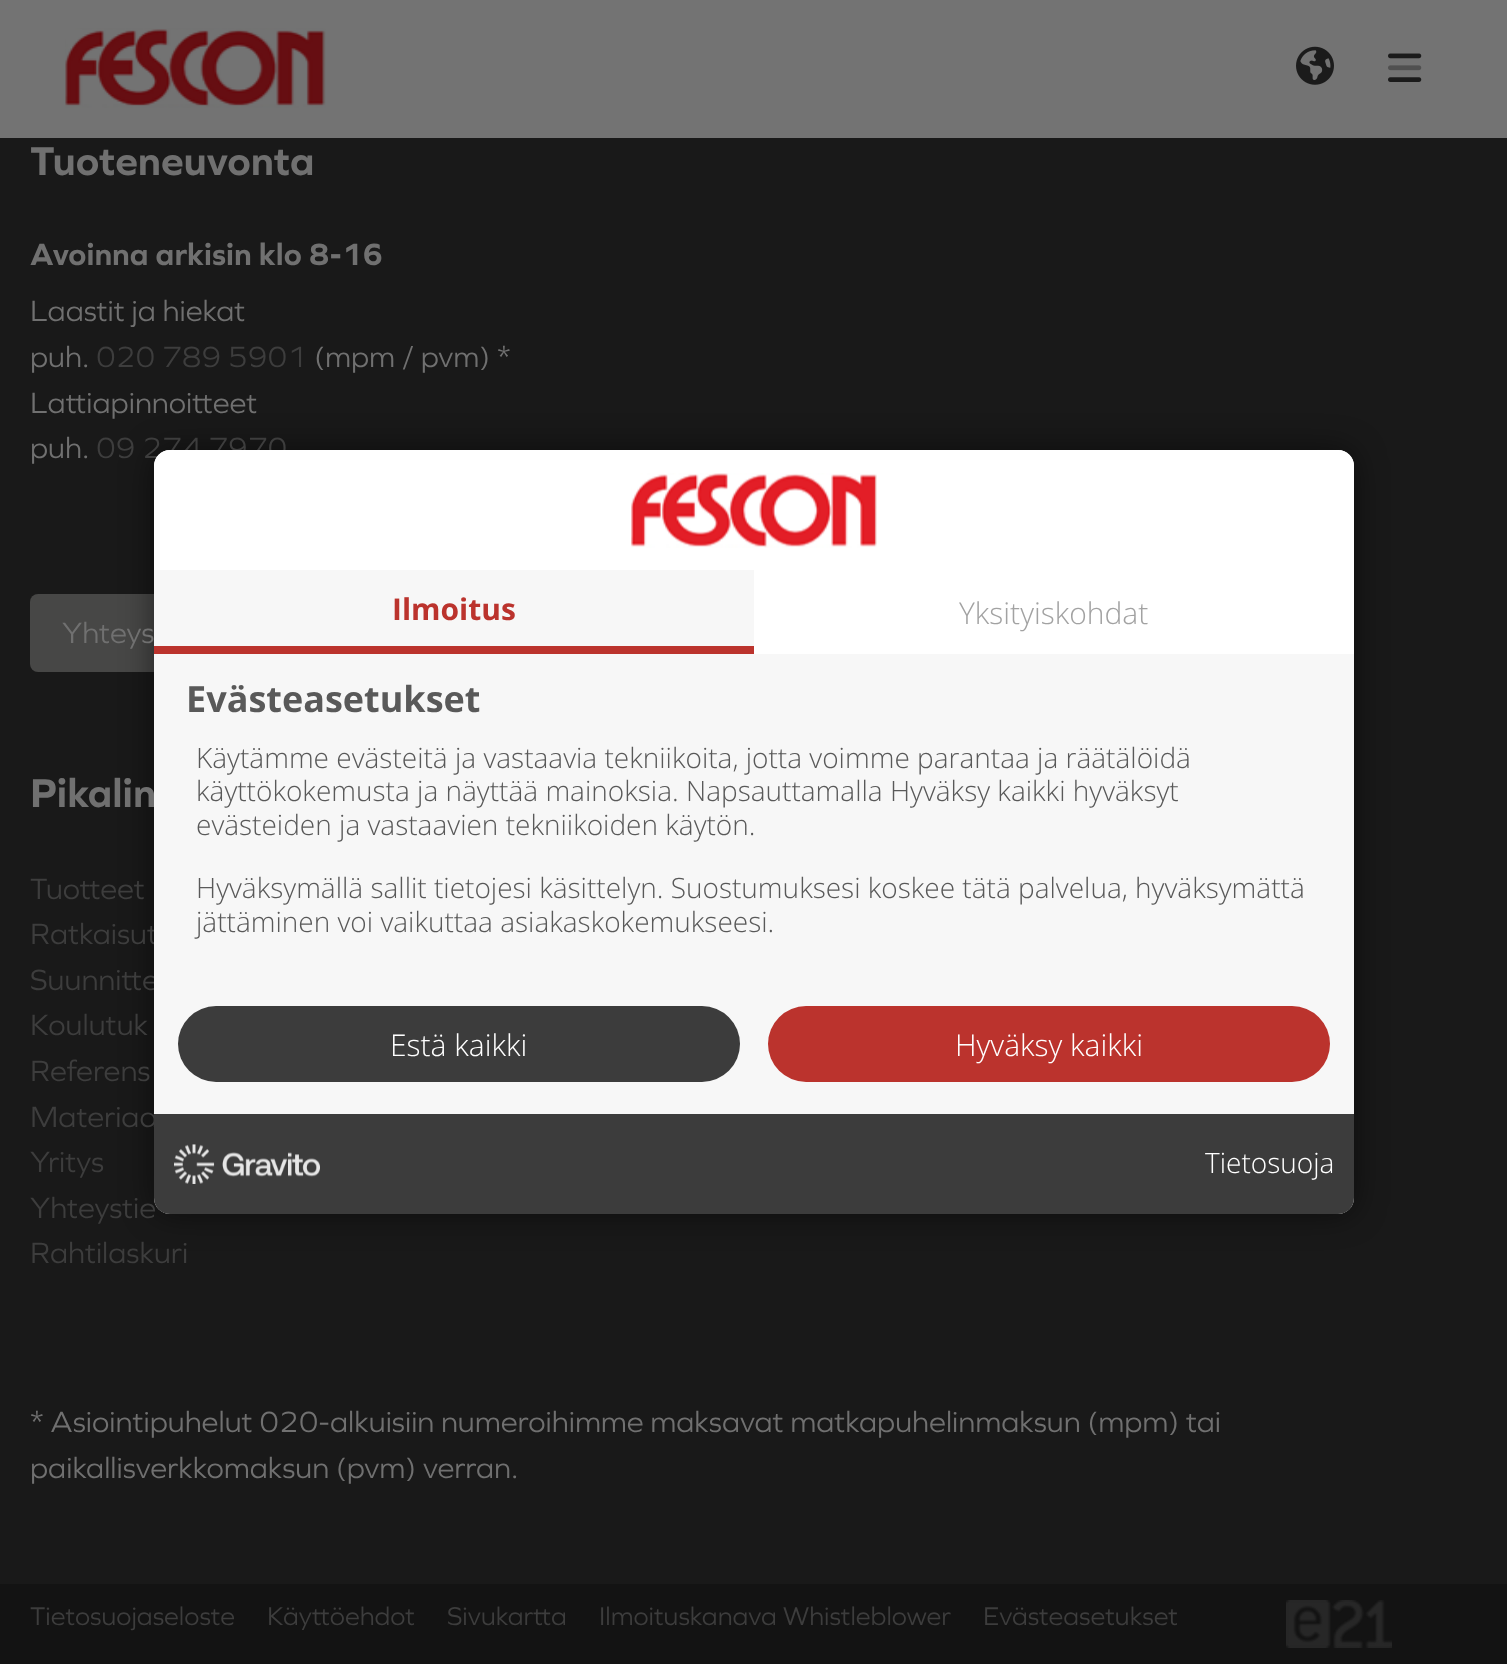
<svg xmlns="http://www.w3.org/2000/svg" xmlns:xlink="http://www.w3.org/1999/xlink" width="1507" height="1664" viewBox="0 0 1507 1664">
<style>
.cls-1{font:bold 41.75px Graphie;fill:#707070}
.cls-2{font:bold 32px Graphie;fill:#707070}
.cls-3{font:30.4px Graphie;fill:#707070}
.cls-4{font:30.4px Graphie;fill:#3d3d3d}
.cls-5{font:26.6px Graphie;fill:#3d3d3d}
.cls-6{font:bold 30px Open Sans;fill:#bb332d}
.cls-7{font:300 30px Open Sans;fill:#a2a2a2}
.cls-8{font:bold 36px Open Sans;fill:#595959}
.cls-9{font:300 28px Open Sans;fill:#595959}
.cls-10{font:300 30px Open Sans;fill:#ffffff}
.cls-11{font:300 28px Open Sans;fill:#ffffff}
</style>
<rect width="100%" height="100%" fill="#191919"/>
<rect fill="#737373" x="0" y="0" width="1507" height="138"/>
<image xlink:href="image0.png" x="65" y="28" width="261" height="80"/>
<image xlink:href="image1.png" x="1296" y="46" width="38" height="39"/>
<image xlink:href="image2.png" x="1388" y="53" width="34" height="29"/>
<image xlink:href="image3.png" x="1388" y="65" width="34" height="6"/>
<rect fill="#474746" x="30" y="594" width="262" height="78" rx="8"/>
<rect fill="#131313" x="0" y="1584" width="1507" height="80"/>
<image xlink:href="image4.png" x="1286" y="1600" width="106" height="48"/>
<rect fill="#000000" fill-opacity="0.5" filter="blur(16px)" x="154" y="450" width="1200" height="764" rx="16"/>
<text class="cls-1" x="30" y="175">Tuoteneuvonta</text>
<text class="cls-2" x="30" y="265">Avoinna arkisin klo 8-16</text>
<text class="cls-3"><tspan x="30" y="321">Laastit ja hiekat</tspan><tspan x="30" y="367">puh.</tspan></text>
<text class="cls-4" x="96" y="367">020 789 5901</text>
<text class="cls-3" x="314" y="367">(mpm / pvm) *</text>
<text class="cls-3"><tspan x="30" y="413">Lattiapinnoitteet</tspan><tspan x="30" y="458">puh.</tspan></text>
<text class="cls-4" x="96" y="458">09 274 7970</text>
<text class="cls-3" x="62" y="643">Yhteys</text>
<text class="cls-1" x="30" y="807">Pikalin</text>
<text class="cls-4"><tspan x="30" y="899">Tuotteet</tspan><tspan x="30" y="944">Ratkaisut</tspan><tspan x="30" y="990">Suunnitte</tspan><tspan x="30" y="1035">Koulutuk</tspan><tspan x="30" y="1081">Referens</tspan><tspan x="30" y="1127">Materiaa</tspan><tspan x="30" y="1172">Yritys</tspan><tspan x="30" y="1218">Yhteystie</tspan><tspan x="30" y="1263">Rahtilaskuri</tspan></text>
<text class="cls-3"><tspan x="30" y="1432">* Asiointipuhelut 020-alkuisiin numeroihimme maksavat matkapuhelinmaksun (mpm) tai</tspan><tspan x="30" y="1478">paikallisverkkomaksun (pvm) verran.</tspan></text>
<text class="cls-5" x="30" y="1625">Tietosuojaseloste</text>
<text class="cls-5" x="267" y="1625">Käyttöehdot</text>
<text class="cls-5" x="447" y="1625">Sivukartta</text>
<text class="cls-5" x="599" y="1625">Ilmoituskanava Whistleblower</text>
<text class="cls-5" x="983" y="1625">Evästeasetukset</text>
<rect fill="#f7f7f7" x="154" y="450" width="1200" height="764" rx="16"/>
<path fill="#ffffff" d="M170 450H1338C1347 450 1354 457 1354 466V570H154V466C154 457 161 450 170 450Z"/>
<image xlink:href="image5.png" x="631" y="473" width="246" height="75"/>
<rect fill="#ffffff" x="754" y="570" width="600" height="84"/>
<rect fill="#bb332d" x="154" y="646" width="600" height="8"/>
<text class="cls-6" x="392" y="620">Ilmoitus</text>
<text class="cls-7" x="959" y="624">Yksityiskohdat</text>
<text class="cls-8" x="186" y="712">Evästeasetukset</text>
<text class="cls-9"><tspan x="196" y="768">Käytämme evästeitä ja vastaavia tekniikoita, jotta voimme parantaa ja räätälöidä</tspan><tspan x="196" y="801">käyttökokemusta ja näyttää mainoksia. Napsauttamalla Hyväksy kaikki hyväksyt</tspan><tspan x="196" y="835">evästeiden ja vastaavien tekniikoiden käytön.</tspan></text>
<text class="cls-9"><tspan x="196" y="898">Hyväksymällä sallit tietojesi käsittelyn. Suostumuksesi koskee tätä palvelua, hyväksymättä</tspan><tspan x="196" y="932">jättäminen voi vaikuttaa asiakaskokemukseesi.</tspan></text>
<rect fill="#3c3c3c" x="178" y="1006" width="562" height="76" rx="38"/>
<text class="cls-10" x="390" y="1056">Estä kaikki</text>
<rect fill="#bb332d" x="768" y="1006" width="562" height="76" rx="38"/>
<text class="cls-10" x="955" y="1056">Hyväksy kaikki</text>
<path fill="#3c3c3c" d="M154 1114H1354V1198C1354 1207 1347 1214 1338 1214H170C161 1214 154 1207 154 1198Z"/>
<image xlink:href="image6.png" x="174" y="1144" width="146" height="40"/>
<text class="cls-11" x="1205" y="1173">Tietosuoja</text>
</svg>
